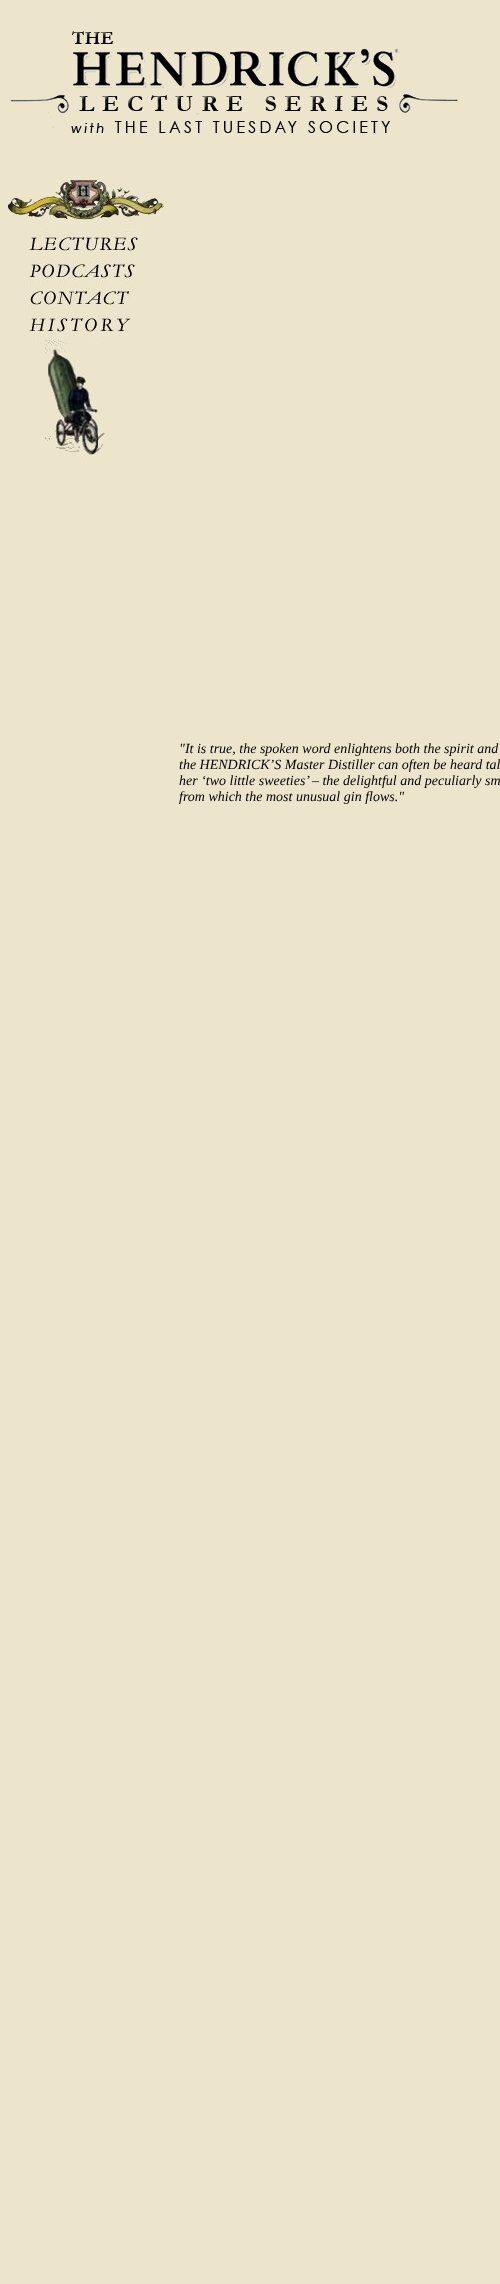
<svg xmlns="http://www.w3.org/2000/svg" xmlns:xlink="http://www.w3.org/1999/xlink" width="500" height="2284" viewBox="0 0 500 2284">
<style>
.cls-1{font:italic 14px Liberation Serif;fill:#000000}
</style>
<rect width="100%" height="100%" fill="#ece5cb"/>
<image xlink:href="image0.png" x="8" y="24" width="456" height="112"/>
<image xlink:href="image1.png" x="0" y="176" width="167" height="48"/>
<image xlink:href="image2.png" x="24" y="230" width="120" height="24"/>
<image xlink:href="image3.png" x="24" y="259" width="112" height="24"/>
<image xlink:href="image4.png" x="24" y="289" width="111" height="24"/>
<image xlink:href="image5.png" x="24" y="313" width="112" height="144"/>
<text class="cls-1"><tspan x="179" y="753">"It is true, the spoken word enlightens both the spirit and</tspan><tspan x="179" y="769">the HENDRICK’S Master Distiller can often be heard tal</tspan><tspan x="179" y="785">her ‘two little sweeties’ – the delightful and peculiarly sm</tspan><tspan x="179" y="801">from which the most unusual gin flows."</tspan></text>
</svg>
